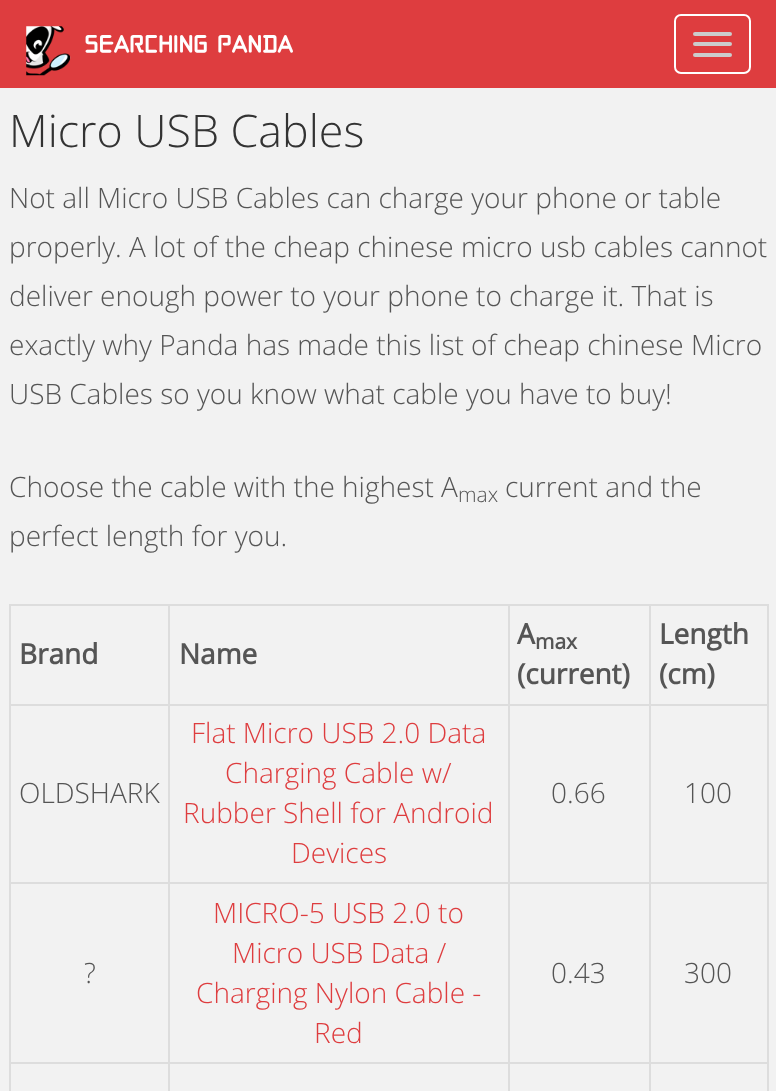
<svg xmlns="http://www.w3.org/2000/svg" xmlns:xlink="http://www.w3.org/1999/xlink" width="776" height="1091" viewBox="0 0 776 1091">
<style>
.cls-1{font:28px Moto;fill:#ffffff}
.cls-2{font:300 44.75px Open Sans;fill:#333333}
.cls-3{font:300 28px Open Sans;fill:#555555}
.cls-4{font:300 21px Open Sans;fill:#555555}
.cls-5{font:bold 28px Open Sans;fill:#555555}
.cls-6{font:bold 21px Open Sans;fill:#555555}
.cls-7{font:300 28px Open Sans;fill:#de3d3f}
</style>
<rect width="100%" height="100%" fill="#f2f2f2"/>
<rect fill="#de3d3f" x="0" y="0" width="776" height="88"/>
<image xlink:href="image0.png" x="26" y="26" width="45" height="50"/>
<rect fill="none" stroke="#ffffff" stroke-width="2" x="675" y="15" width="75" height="58" rx="6"/>
<rect fill="#cccccc" x="693" y="32" width="39" height="4" rx="2"/>
<rect fill="#cccccc" x="693" y="42" width="39" height="4" rx="2"/>
<rect fill="#cccccc" x="693" y="53" width="39" height="4" rx="2"/>
<rect fill="#dddddd" x="9" y="604" width="759" height="2"/>
<rect fill="#dddddd" x="767" y="604" width="2" height="487"/>
<rect fill="#dddddd" x="9" y="604" width="2" height="487"/>
<rect fill="#dddddd" x="649" y="704" width="119" height="2"/>
<rect fill="#dddddd" x="649" y="882" width="119" height="2"/>
<rect fill="#dddddd" x="649" y="1062" width="119" height="2"/>
<rect fill="#dddddd" x="649" y="1062" width="2" height="29"/>
<rect fill="#dddddd" x="508" y="1062" width="143" height="2"/>
<rect fill="#dddddd" x="649" y="882" width="2" height="182"/>
<rect fill="#dddddd" x="508" y="882" width="143" height="2"/>
<rect fill="#dddddd" x="649" y="704" width="2" height="180"/>
<rect fill="#dddddd" x="508" y="704" width="143" height="2"/>
<rect fill="#dddddd" x="508" y="1062" width="2" height="29"/>
<rect fill="#dddddd" x="168" y="1062" width="341" height="2"/>
<rect fill="#dddddd" x="508" y="882" width="2" height="182"/>
<rect fill="#dddddd" x="168" y="882" width="341" height="2"/>
<rect fill="#dddddd" x="508" y="704" width="2" height="180"/>
<rect fill="#dddddd" x="168" y="704" width="341" height="2"/>
<rect fill="#dddddd" x="168" y="1062" width="2" height="29"/>
<rect fill="#dddddd" x="9" y="1062" width="161" height="2"/>
<rect fill="#dddddd" x="168" y="882" width="2" height="182"/>
<rect fill="#dddddd" x="9" y="882" width="161" height="2"/>
<rect fill="#dddddd" x="168" y="704" width="2" height="180"/>
<rect fill="#dddddd" x="9" y="704" width="161" height="2"/>
<rect fill="#dddddd" x="168" y="604" width="2" height="101"/>
<rect fill="#dddddd" x="508" y="604" width="2" height="101"/>
<rect fill="#dddddd" x="649" y="604" width="2" height="101"/>
<text class="cls-1" x="84" y="56">Searching Panda</text>
<text class="cls-2" x="9" y="147">Micro USB Cables</text>
<text class="cls-3"><tspan x="9" y="208">Not all Micro USB Cables can charge your phone or table</tspan><tspan x="9" y="257">properly. A lot of the cheap chinese micro usb cables cannot</tspan><tspan x="9" y="306">deliver enough power to your phone to charge it. That is</tspan><tspan x="9" y="355">exactly why Panda has made this list of cheap chinese Micro</tspan><tspan x="9" y="404">USB Cables so you know what cable you have to buy!</tspan></text>
<text class="cls-3" x="9" y="497">Choose the cable with the highest A</text>
<text class="cls-4" x="458" y="502">max</text>
<text class="cls-3" x="505" y="497">current and the</text>
<text class="cls-3" x="9" y="546">perfect length for you.</text>
<text class="cls-5" x="19" y="664">Brand</text>
<text class="cls-5" x="179" y="664">Name</text>
<text class="cls-5" x="517" y="644">A</text>
<text class="cls-6" x="535" y="649">max</text>
<text class="cls-5" x="517" y="684">(current)</text>
<text class="cls-5"><tspan x="659" y="644">Length</tspan><tspan x="659" y="684">(cm)</tspan></text>
<text class="cls-3" x="19" y="803">OLDSHARK</text>
<text class="cls-7" x="191" y="743">Flat Micro USB 2.0 Data</text>
<text class="cls-7" x="225" y="783">Charging Cable w/</text>
<text class="cls-7" x="183" y="823">Rubber Shell for Android</text>
<text class="cls-7" x="291" y="863">Devices</text>
<text class="cls-3" x="551" y="803">0.66</text>
<text class="cls-3" x="684" y="803">100</text>
<text class="cls-3" x="84" y="983">?</text>
<text class="cls-7" x="213" y="923">MICRO-5 USB 2.0 to</text>
<text class="cls-7" x="232" y="963">Micro USB Data /</text>
<text class="cls-7" x="196" y="1003">Charging Nylon Cable -</text>
<text class="cls-7" x="314" y="1043">Red</text>
<text class="cls-3" x="551" y="983">0.43</text>
<text class="cls-3" x="684" y="983">300</text>
</svg>
